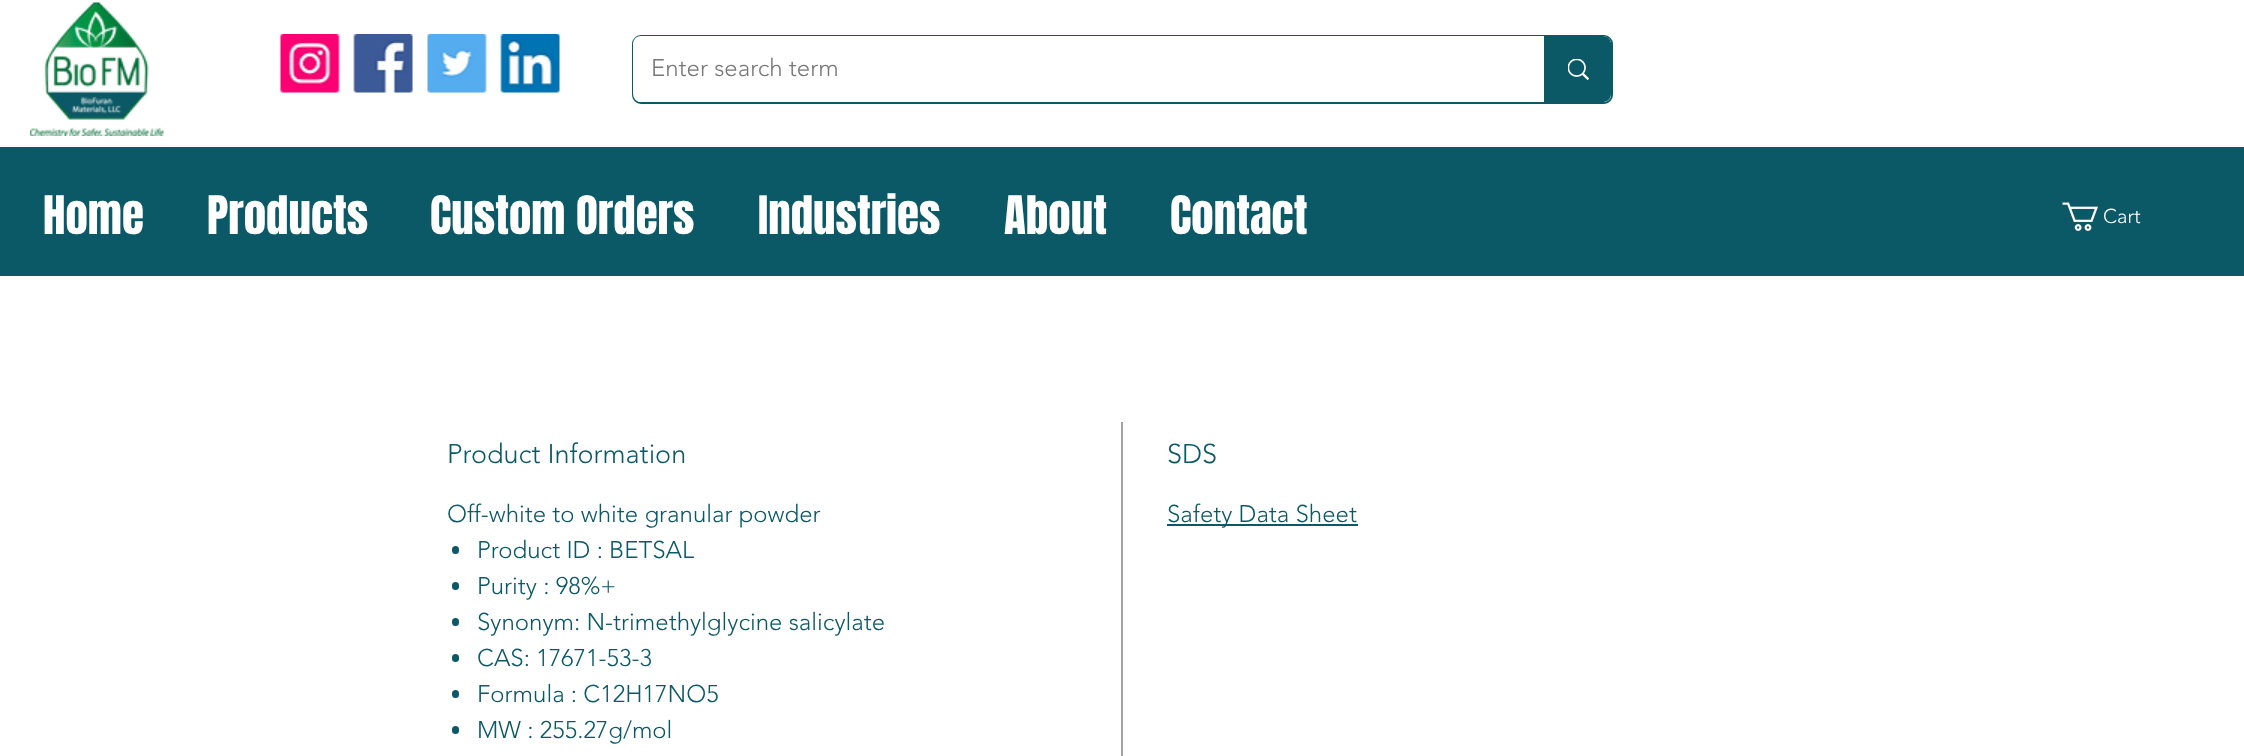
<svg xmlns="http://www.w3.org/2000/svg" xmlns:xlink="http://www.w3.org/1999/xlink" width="2244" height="756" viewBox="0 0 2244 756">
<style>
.cls-1{font:300 24px 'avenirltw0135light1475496';fill:#787878}
.cls-2{font:45px Anton;fill:#ffffff}
.cls-3{font:300 20px 'avenirltw0135light1475496';fill:#ffffff}
.cls-4{font:300 27px 'avenirltw0135light1475496';fill:#0b5966}
.cls-5{font:300 24px 'avenirltw0135light1475496';fill:#0b5966}
</style>
<rect width="100%" height="100%" fill="#ffffff"/>
<image xlink:href="image0.png" x="30" y="2" width="134" height="134"/>
<image xlink:href="image1.png" x="280" y="34" width="60" height="59"/>
<image xlink:href="image2.png" x="353" y="34" width="60" height="59"/>
<image xlink:href="image3.png" x="427" y="34" width="60" height="59"/>
<image xlink:href="image4.png" x="500" y="34" width="60" height="59"/>
<rect fill="none" stroke="#0b5966" stroke-width="2" x="633" y="36" width="979" height="67" rx="8"/>
<rect fill="#ffffff" x="633" y="36" width="978" height="66" rx="8"/>
<path fill="#0b5966" d="M1544 36H1603C1607.5 36 1611 39.5 1611 44V94C1611 98.5 1607.5 102 1603 102H1544Z"/>
<image xlink:href="image5.png" x="1568" y="59" width="21" height="21"/>
<rect fill="#0b5966" x="0" y="147" width="2244" height="129"/>
<image xlink:href="image6.png" x="2062" y="202" width="36" height="29"/>
<rect fill="#a6a2a2" x="1121" y="422" width="2" height="334"/>
<rect fill="#0b5966" x="452" y="546" width="7" height="8" rx="3.5"/>
<rect fill="#0b5966" x="452" y="582" width="7" height="8" rx="3.5"/>
<rect fill="#0b5966" x="452" y="618" width="7" height="8" rx="3.5"/>
<rect fill="#0b5966" x="452" y="654" width="7" height="8" rx="3.5"/>
<rect fill="#0b5966" x="452" y="690" width="7" height="8" rx="3.5"/>
<rect fill="#0b5966" x="452" y="726" width="7" height="8" rx="3.5"/>
<rect fill="#0b5966" x="1167" y="524" width="191" height="2"/>
<text class="cls-1" x="651" y="76">Enter search term</text>
<text class="cls-2" x="43" y="234">Home</text>
<text class="cls-2" x="207" y="234">Products</text>
<text class="cls-2" x="430" y="234">Custom Orders</text>
<text class="cls-2" x="758" y="234">Industries</text>
<text class="cls-2" x="1004" y="234">About</text>
<text class="cls-2" x="1170" y="234">Contact</text>
<text class="cls-3" x="2103" y="223">Cart</text>
<text class="cls-4" x="447" y="463">Product Information</text>
<text class="cls-5" x="447" y="522">Off-white to white granular powder</text>
<text class="cls-5"><tspan x="477" y="558">Product ID : BETSAL</tspan><tspan x="477" y="594">Purity : 98%+</tspan><tspan x="477" y="630">Synonym: N-trimethylglycine salicylate</tspan><tspan x="477" y="666">CAS: 17671-53-3</tspan><tspan x="477" y="702">Formula : C12H17NO5</tspan><tspan x="477" y="738">MW : 255.27g/mol</tspan></text>
<text class="cls-4" x="1167" y="463">SDS</text>
<text class="cls-5" x="1167" y="522">Safety Data Sheet</text>
</svg>
